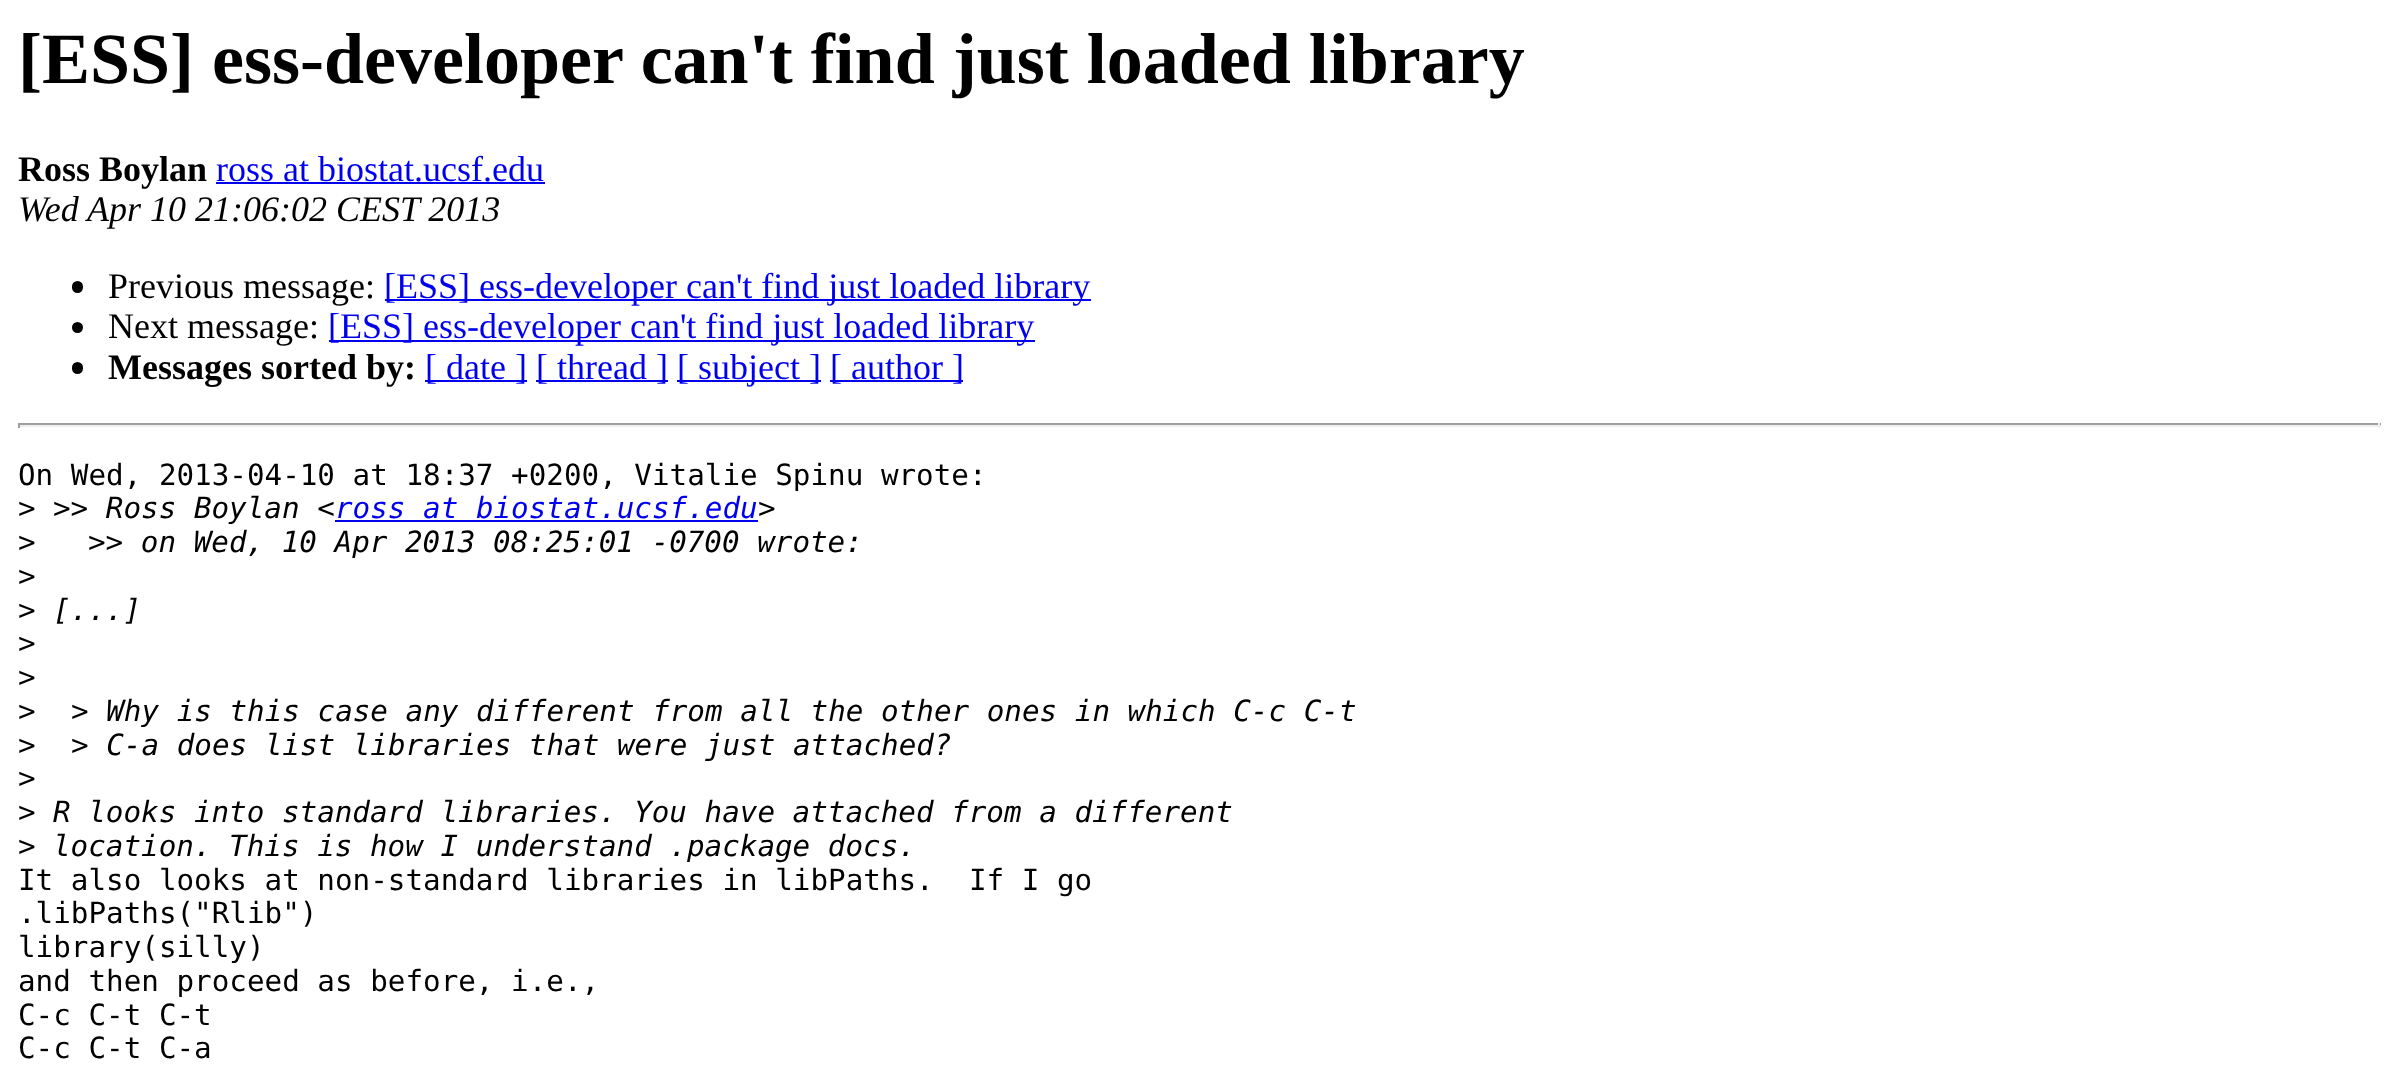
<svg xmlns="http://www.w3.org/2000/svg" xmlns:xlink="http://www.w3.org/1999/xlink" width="2398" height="1074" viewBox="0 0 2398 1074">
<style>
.cls-1{font:bold 72px Liberation Serif;fill:#000000}
.cls-2{font:bold 36px Liberation Serif;fill:#000000}
.cls-3{font:36px Liberation Serif;fill:#0000ee}
.cls-4{font:italic 36px Liberation Serif;fill:#000000}
.cls-5{font:36px Liberation Serif;fill:#000000}
.cls-6{font:29.25px DejaVu Sans Mono;fill:#000000}
.cls-7{font:italic 29.25px DejaVu Sans Mono;fill:#000000}
.cls-8{font:italic 29.25px DejaVu Sans Mono;fill:#0000ee}
</style>
<rect width="100%" height="100%" fill="#ffffff"/>
<rect fill="#0000ee" x="216" y="182" width="329" height="2"/>
<rect fill="#000000" x="72" y="281" width="11" height="12" rx="5.5"/>
<rect fill="#0000ee" x="385" y="299" width="706" height="2"/>
<circle fill="#000000" cx="77.5" cy="327.5" r="5.5"/>
<rect fill="#0000ee" x="329" y="340" width="706" height="2"/>
<rect fill="#000000" x="72" y="362" width="11" height="12" rx="5.5"/>
<rect fill="#0000ee" x="425" y="380" width="102" height="2"/>
<rect fill="#0000ee" x="536" y="380" width="132" height="2"/>
<rect fill="#0000ee" x="677" y="380" width="144" height="2"/>
<rect fill="#0000ee" x="830" y="380" width="133" height="2"/>
<rect fill="#9f9f9f" x="18" y="423" width="2363" height="2"/>
<rect fill="#eeeeee" x="2378" y="423" width="2" height="5"/>
<rect fill="#eeeeee" x="18" y="425" width="2363" height="2"/>
<rect fill="#9f9f9f" x="18" y="423" width="2" height="5"/>
<rect fill="#0000ee" x="335" y="520" width="423" height="2"/>
<text class="cls-1" x="18" y="83">[ESS] ess-developer can't find just loaded library</text>
<text class="cls-2" x="18" y="181">Ross Boylan</text>
<text class="cls-3" x="216" y="181">ross at biostat.ucsf.edu</text>
<text class="cls-4" x="18" y="221">Wed Apr 10 21:06:02 CEST 2013</text>
<text class="cls-5" x="108" y="298">Previous message:</text>
<text class="cls-3" x="384" y="298">[ESS] ess-developer can't find just loaded library</text>
<text class="cls-5" x="108" y="338">Next message:</text>
<text class="cls-3" x="328" y="338">[ESS] ess-developer can't find just loaded library</text>
<text class="cls-2" x="108" y="379">Messages sorted by:</text>
<text class="cls-3" x="425" y="379">[ date ]</text>
<text class="cls-3" x="536" y="379">[ thread ]</text>
<text class="cls-3" x="677" y="379">[ subject ]</text>
<text class="cls-3" x="830" y="379">[ author ]</text>
<text class="cls-6"><tspan x="18" y="485">On Wed, 2013-04-10 at 18:37 +0200, Vitalie Spinu wrote:</tspan><tspan x="18" y="518">&gt;</tspan></text>
<text class="cls-7" x="53" y="518">&gt;&gt; Ross Boylan &lt;</text>
<text class="cls-8" x="335" y="518">ross at biostat.ucsf.edu</text>
<text class="cls-7" x="758" y="518">&gt;</text>
<text class="cls-6" x="18" y="552">&gt;</text>
<text class="cls-7" x="88" y="552">&gt;&gt; on Wed, 10 Apr 2013 08:25:01 -0700 wrote:</text>
<text class="cls-6"><tspan x="18" y="586">&gt;</tspan><tspan x="18" y="620">&gt;</tspan></text>
<text class="cls-7" x="53" y="620">[...]</text>
<text class="cls-6"><tspan x="18" y="653">&gt;</tspan><tspan x="18" y="687">&gt;</tspan><tspan x="18" y="721">&gt;</tspan></text>
<text class="cls-7" x="71" y="721">&gt; Why is this case any different from all the other ones in which C-c C-t</text>
<text class="cls-6" x="18" y="755">&gt;</text>
<text class="cls-7" x="71" y="755">&gt; C-a does list libraries that were just attached?</text>
<text class="cls-6"><tspan x="18" y="788">&gt;</tspan><tspan x="18" y="822">&gt;</tspan></text>
<text class="cls-7" x="53" y="822">R looks into standard libraries. You have attached from a different</text>
<text class="cls-6" x="18" y="856">&gt;</text>
<text class="cls-7" x="53" y="856">location. This is how I understand .package docs.</text>
<text class="cls-6" xml:space="preserve"><tspan x="18" y="890">It also looks at non-standard libraries in libPaths.  If I go</tspan><tspan x="18" y="923">.libPaths("Rlib")</tspan><tspan x="18" y="957">library(silly)</tspan><tspan x="18" y="991">and then proceed as before, i.e.,</tspan><tspan x="18" y="1025">C-c C-t C-t</tspan><tspan x="18" y="1058">C-c C-t C-a</tspan></text>
</svg>
